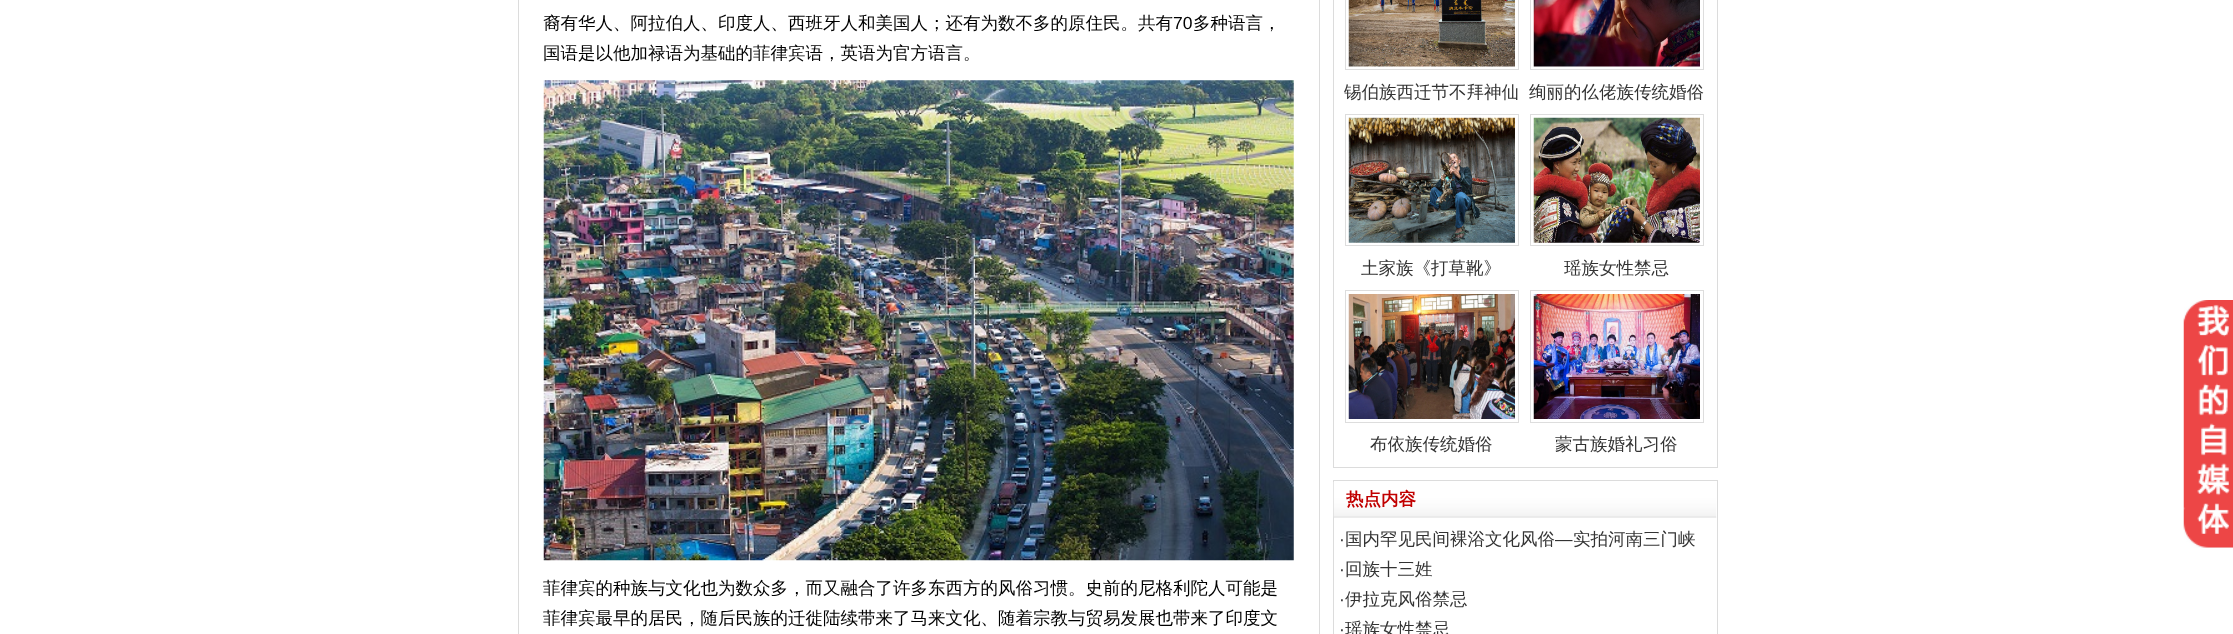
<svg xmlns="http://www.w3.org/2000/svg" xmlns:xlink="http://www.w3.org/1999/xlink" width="2233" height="634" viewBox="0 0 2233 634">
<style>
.cls-1{font:500 17.5px WenQuanYi Zen Hei;fill:#000000}
.cls-2{font:17.5px Liberation Sans;fill:#000000}
.cls-3{font:500 17.5px WenQuanYi Zen Hei;fill:#333333}
.cls-4{font:bold 17.5px WenQuanYi Zen Hei;fill:#c10000}
.cls-5{font:17.5px Liberation Sans;fill:#333333}
</style>
<defs>
<clipPath id="clip1"><rect x="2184" y="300" width="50" height="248"/></clipPath>
</defs>
<rect width="100%" height="100%" fill="#ffffff"/>
<rect fill="none" stroke="#dcdcdc" x="518.5" y="-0.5" width="801" height="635"/>
<image xlink:href="image0.png" x="543" y="80" width="751" height="481"/>
<rect fill="none" stroke="#dcdcdc" x="1333.5" y="-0.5" width="384" height="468"/>
<rect fill="none" stroke="#dddddd" x="1345.5" y="-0.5" width="173" height="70"/>
<image xlink:href="image1.png" x="1348" y="0" width="167" height="67"/>
<rect fill="none" stroke="#dddddd" x="1530.5" y="-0.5" width="173" height="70"/>
<image xlink:href="image2.png" x="1533" y="0" width="167" height="67"/>
<rect fill="none" stroke="#dddddd" x="1345.5" y="114.5" width="173" height="131"/>
<image xlink:href="image3.png" x="1348" y="117" width="167" height="126"/>
<rect fill="none" stroke="#dddddd" x="1530.5" y="114.5" width="173" height="131"/>
<image xlink:href="image4.png" x="1533" y="117" width="167" height="126"/>
<rect fill="none" stroke="#dddddd" x="1345.5" y="290.5" width="173" height="132"/>
<image xlink:href="image5.png" x="1348" y="294" width="167" height="125"/>
<rect fill="none" stroke="#dddddd" x="1530.5" y="290.5" width="173" height="132"/>
<image xlink:href="image6.png" x="1533" y="294" width="167" height="125"/>
<rect fill="none" stroke="#dcdcdc" x="1333.5" y="480.5" width="384" height="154"/>
<image xlink:href="image7.png" x="1333" y="482" width="384" height="36"/>
<g clip-path="url(#clip1)">
<rect fill="#e4e8ec" filter="blur(3px)" x="2184" y="300" width="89" height="248" rx="31"/>
</g>
<image xlink:href="image8.png" x="2183" y="300" width="50" height="248"/>
<text class="cls-1" x="543" y="29">裔有华人、阿拉伯人、印度人、西班牙人和美国人；还有为数不多的原住民。共有</text>
<text class="cls-2" x="1173" y="29">70</text>
<text class="cls-1" x="1193" y="29">多种语言，</text>
<text class="cls-1" x="543" y="59">国语是以他加禄语为基础的菲律宾语，英语为官方语言。</text>
<text class="cls-1"><tspan x="543" y="594">菲律宾的种族与文化也为数众多，而又融合了许多东西方的风俗习惯。史前的尼格利陀人可能是</tspan><tspan x="543" y="624">菲律宾最早的居民，随后民族的迁徙陆续带来了马来文化、随着宗教与贸易发展也带来了印度文</tspan></text>
<text class="cls-3" x="1344" y="98">锡伯族西迁节不拜神仙</text>
<text class="cls-3" x="1529" y="98">绚丽的仫佬族传统婚俗</text>
<text class="cls-3" x="1361" y="274">土家族《打草靴》</text>
<text class="cls-3" x="1564" y="274">瑶族女性禁忌</text>
<text class="cls-3" x="1370" y="450">布依族传统婚俗</text>
<text class="cls-3" x="1555" y="450">蒙古族婚礼习俗</text>
<text class="cls-4" x="1346" y="505">热点内容</text>
<text class="cls-5" x="1339" y="545">·</text>
<text class="cls-3" x="1345" y="545">国内罕见民间裸浴文化风俗</text>
<text class="cls-5" x="1555" y="545">—</text>
<text class="cls-3" x="1573" y="545">实拍河南三门峡</text>
<text class="cls-5" x="1339" y="575">·</text>
<text class="cls-3" x="1345" y="575">回族十三姓</text>
<text class="cls-5" x="1339" y="605">·</text>
<text class="cls-3" x="1345" y="605">伊拉克风俗禁忌</text>
<text class="cls-5" x="1339" y="635">·</text>
<text class="cls-3" x="1345" y="635">瑶族女性禁忌</text>
</svg>
